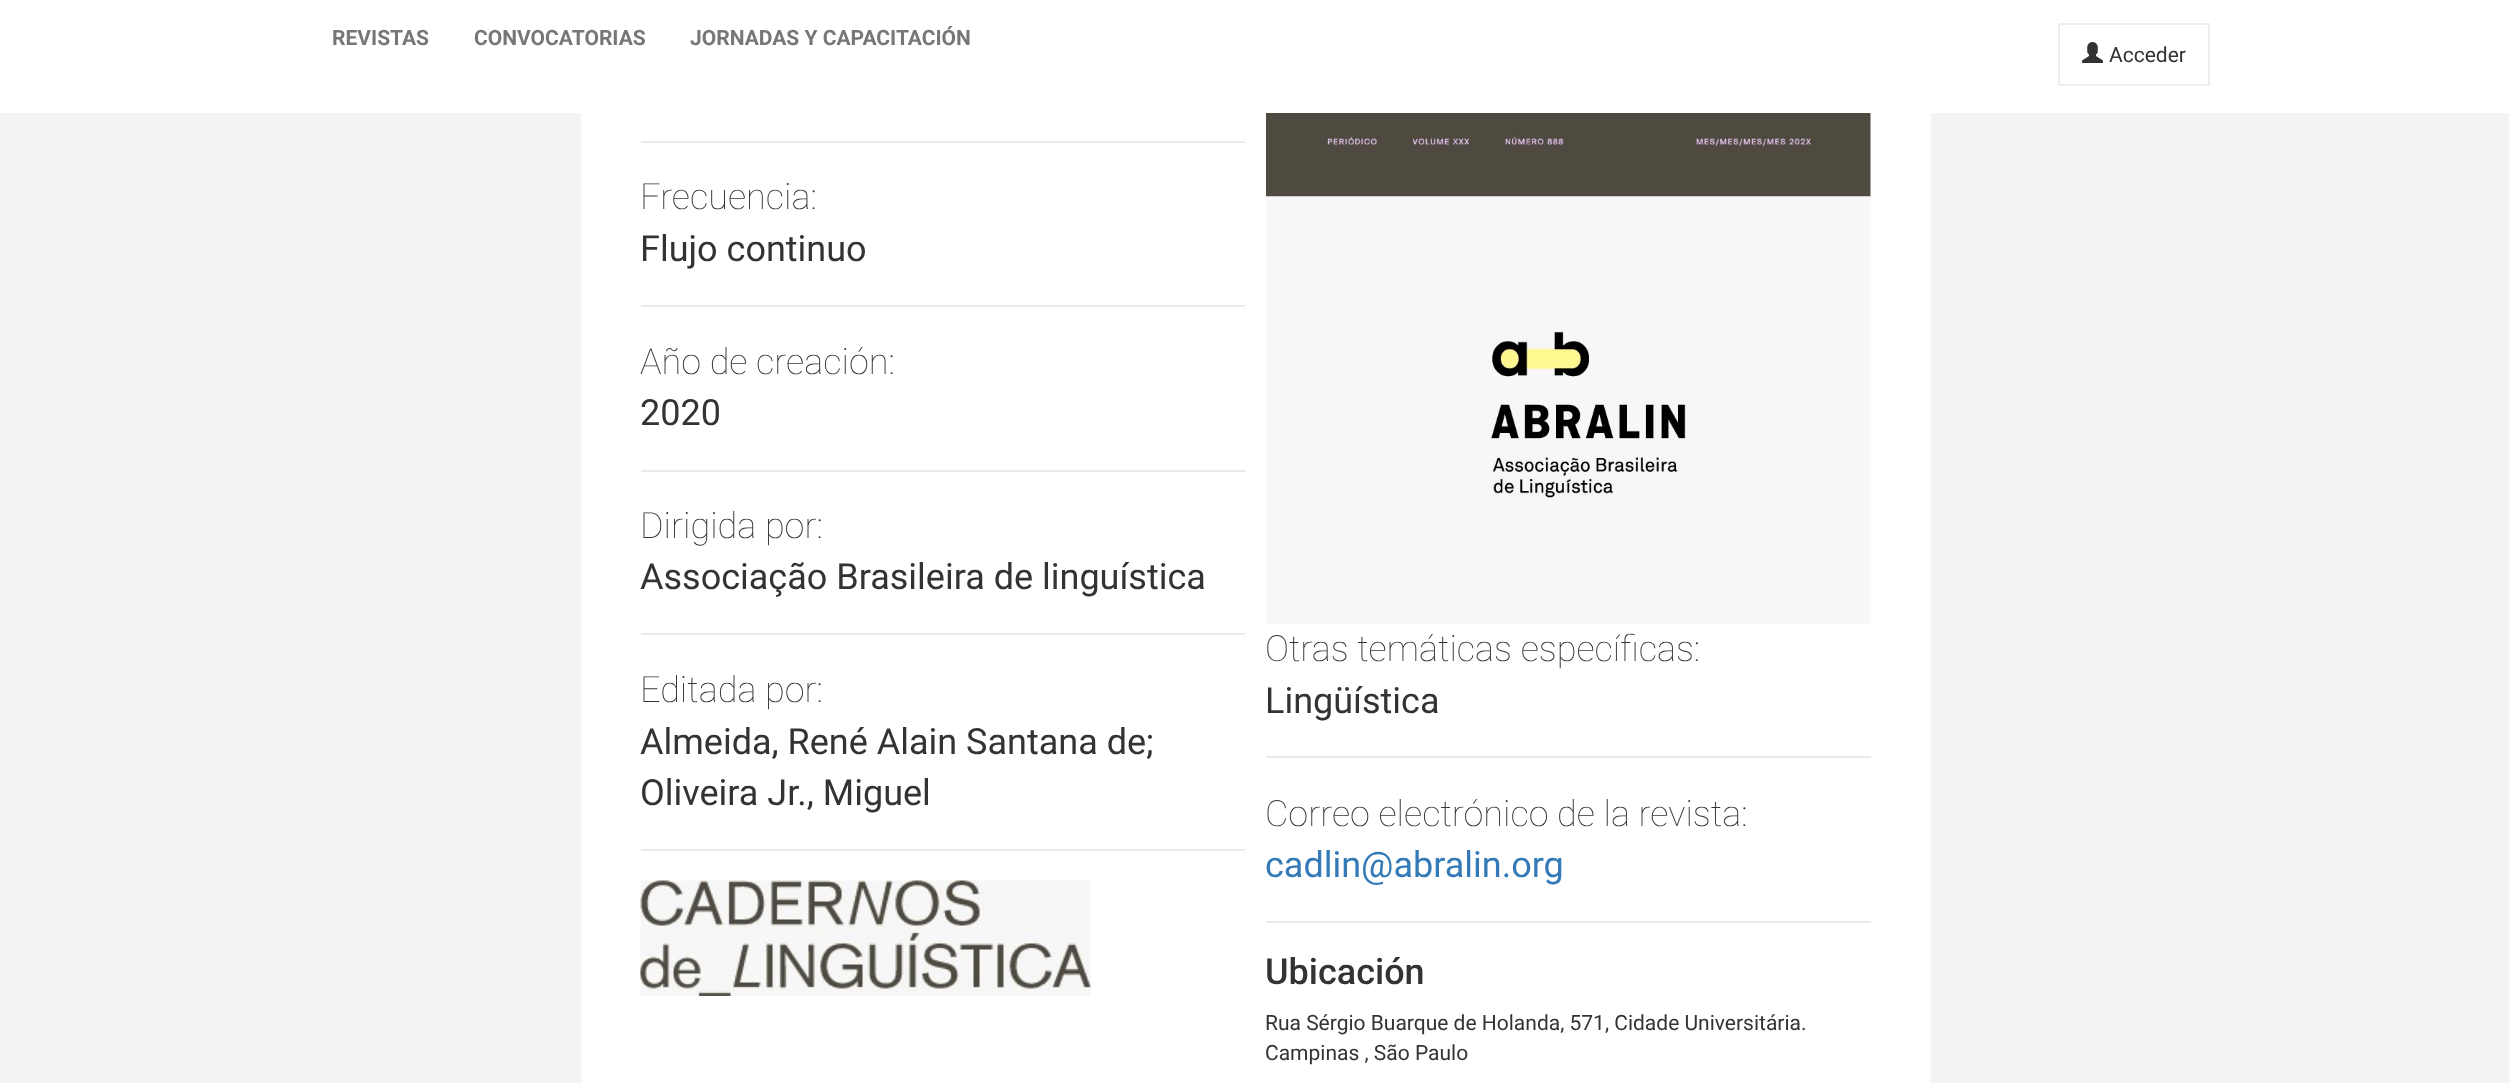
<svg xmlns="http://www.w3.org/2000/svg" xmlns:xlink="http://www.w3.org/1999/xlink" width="2509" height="1083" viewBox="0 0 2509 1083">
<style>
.cls-1{font:bold 21px Roboto;fill:#777777}
.cls-2{font:21px Roboto;fill:#333333}
.cls-3{font:100 36px Roboto;fill:#333333}
.cls-4{font:36px Roboto;fill:#333333}
.cls-5{font:36px Roboto;fill:#337ab7}
.cls-6{font:500 36px Roboto;fill:#333333}
</style>
<rect width="100%" height="100%" fill="#f3f3f3"/>
<rect fill="#ffffff" x="0" y="0" width="2509" height="113"/>
<rect fill="none" stroke="#eeeeee" stroke-width="2" x="2059" y="24" width="150" height="61"/>
<image xlink:href="image0.png" x="2082" y="42" width="21" height="21"/>
<rect fill="#ffffff" x="581" y="113" width="1350" height="970"/>
<rect fill="#eaeaea" x="641" y="141" width="604" height="2"/>
<image xlink:href="image1.png" x="1266" y="113" width="605" height="84"/>
<rect fill="#eaeaea" x="641" y="305" width="604" height="2"/>
<image xlink:href="image2.png" x="1266" y="196" width="605" height="428"/>
<rect fill="#eaeaea" x="641" y="470" width="604" height="2"/>
<rect fill="#eaeaea" x="641" y="633" width="604" height="2"/>
<rect fill="#eaeaea" x="641" y="849" width="604" height="2"/>
<rect fill="#eaeaea" x="1266" y="756" width="605" height="2"/>
<rect fill="#eaeaea" x="1266" y="921" width="605" height="2"/>
<image xlink:href="image3.png" x="640" y="880" width="451" height="116"/>
<text class="cls-1" x="332" y="45">REVISTAS</text>
<text class="cls-1" x="474" y="45">CONVOCATORIAS</text>
<text class="cls-1" x="690" y="45">JORNADAS Y CAPACITACIÓN</text>
<text class="cls-2" x="2109" y="62">Acceder</text>
<text class="cls-3" x="640" y="209">Frecuencia:</text>
<text class="cls-4" x="640" y="261">Flujo continuo</text>
<text class="cls-3" x="640" y="374">Año de creación:</text>
<text class="cls-4" x="640" y="425">2020</text>
<text class="cls-3" x="640" y="538">Dirigida por:</text>
<text class="cls-4" x="640" y="589">Associação Brasileira de linguística</text>
<text class="cls-3" x="640" y="702">Editada por:</text>
<text class="cls-4"><tspan x="640" y="754">Almeida, René Alain Santana de;</tspan><tspan x="640" y="805">Oliveira Jr., Miguel</tspan></text>
<text class="cls-3" x="1265" y="661">Otras temáticas específicas:</text>
<text class="cls-4" x="1265" y="713">Lingüística</text>
<text class="cls-3" x="1265" y="826">Correo electrónico de la revista:</text>
<text class="cls-5" x="1265" y="877">cadlin@abralin.org</text>
<text class="cls-6" x="1265" y="984">Ubicación</text>
<text class="cls-2"><tspan x="1265" y="1030">Rua Sérgio Buarque de Holanda, 571, Cidade Universitária.</tspan><tspan x="1265" y="1060">Campinas , São Paulo</tspan></text>
</svg>
